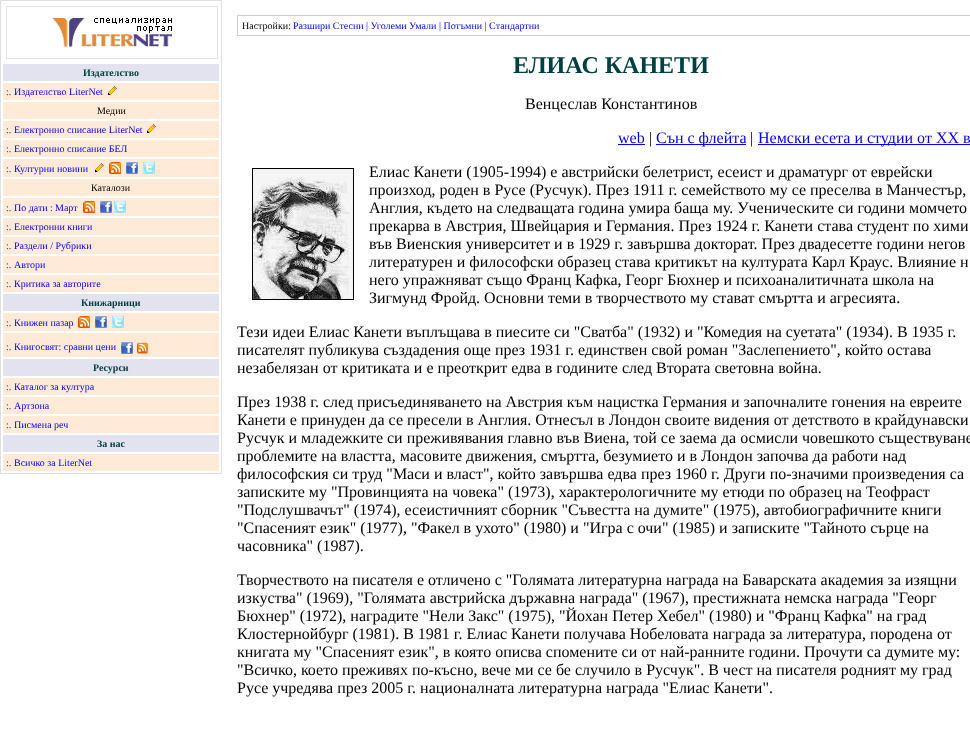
<svg xmlns="http://www.w3.org/2000/svg" xmlns:xlink="http://www.w3.org/1999/xlink" width="970" height="742" viewBox="0 0 970 742">
<style>
.cls-1{font:bold 10px Liberation Serif;fill:#004040}
.cls-2{font:10px Liberation Serif;fill:#004040}
.cls-3{font:10px Liberation Serif;fill:#0000ee}
.cls-4{font:10px Liberation Serif;fill:#000000}
.cls-5{font:10px Liberation Serif;fill:#0000ff}
.cls-6{font:bold 24px Liberation Serif;fill:#004040}
.cls-7{font:16px Liberation Serif;fill:#000000}
.cls-8{font:16px Liberation Serif;fill:#0000ee}
</style>
<rect width="100%" height="100%" fill="#ffffff"/>
<rect fill="none" stroke="#e0e0e0" x="0.5" y="0.5" width="221" height="473"/>
<rect fill="none" stroke="#e3e3f0" x="6.5" y="6.5" width="211" height="52"/>
<image xlink:href="image0.png" x="52" y="18" width="120" height="29"/>
<rect fill="#e3e3f0" x="3" y="64" width="216" height="17"/>
<rect fill="#ffead7" x="3" y="83" width="216" height="17"/>
<image xlink:href="image1.png" x="108" y="86" width="9" height="9"/>
<rect fill="#ffead7" x="3" y="102" width="216" height="17"/>
<rect fill="#ffead7" x="3" y="121" width="216" height="17"/>
<image xlink:href="image1.png" x="147" y="124" width="9" height="9"/>
<rect fill="#ffead7" x="3" y="140" width="216" height="17"/>
<rect fill="#ffead7" x="3" y="159" width="216" height="18"/>
<image xlink:href="image1.png" x="95" y="163" width="9" height="9"/>
<image xlink:href="image2.png" x="109" y="162" width="12" height="12"/>
<image xlink:href="image3.png" x="126" y="162" width="12" height="12"/>
<image xlink:href="image4.png" x="143" y="162" width="12" height="12"/>
<rect fill="#ffead7" x="3" y="179" width="216" height="17"/>
<rect fill="#ffead7" x="3" y="198" width="216" height="18"/>
<image xlink:href="image2.png" x="83" y="201" width="12" height="12"/>
<image xlink:href="image3.png" x="100" y="201" width="12" height="12"/>
<image xlink:href="image4.png" x="114" y="201" width="12" height="12"/>
<rect fill="#ffead7" x="3" y="218" width="216" height="17"/>
<rect fill="#ffead7" x="3" y="237" width="216" height="17"/>
<rect fill="#ffead7" x="3" y="256" width="216" height="17"/>
<rect fill="#ffead7" x="3" y="275" width="216" height="17"/>
<rect fill="#e3e3f0" x="3" y="294" width="216" height="17"/>
<rect fill="#ffead7" x="3" y="313" width="216" height="18"/>
<image xlink:href="image2.png" x="78" y="316" width="12" height="12"/>
<image xlink:href="image3.png" x="95" y="316" width="12" height="12"/>
<image xlink:href="image5.png" x="112" y="316" width="12" height="12"/>
<rect fill="#ffead7" x="3" y="333" width="216" height="24"/>
<image xlink:href="image3.png" x="121" y="342" width="12" height="12"/>
<image xlink:href="image6.png" x="137" y="342" width="12" height="12"/>
<rect fill="#e3e3f0" x="3" y="359" width="216" height="17"/>
<rect fill="#ffead7" x="3" y="378" width="216" height="17"/>
<rect fill="#ffead7" x="3" y="397" width="216" height="17"/>
<rect fill="#ffead7" x="3" y="416" width="216" height="17"/>
<rect fill="#e3e3f0" x="3" y="435" width="216" height="17"/>
<rect fill="#ffead7" x="3" y="454" width="216" height="17"/>
<rect fill="none" stroke="#cccccc" x="237.5" y="15.5" width="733" height="20"/>
<rect fill="#0000ee" x="618" y="144" width="27" height="1"/>
<rect fill="#0000ee" x="656" y="144" width="90" height="1"/>
<rect fill="#0000ee" x="758" y="144" width="212" height="1"/>
<rect fill="none" stroke="#000000" x="252.5" y="168.5" width="101" height="131"/>
<image xlink:href="image7.png" x="253" y="169" width="100" height="130"/>
<text class="cls-1" x="83" y="76">Издателство</text>
<text class="cls-2" x="6" y="95">:.</text>
<text class="cls-3" x="14" y="95">Издателство LiterNet</text>
<text class="cls-4" x="97" y="114">Медии</text>
<text class="cls-2" x="6" y="133">:.</text>
<text class="cls-3" x="14" y="133">Електронно списание LiterNet</text>
<text class="cls-2" x="6" y="152">:.</text>
<text class="cls-3" x="14" y="152">Електронно списание БЕЛ</text>
<text class="cls-2" x="6" y="172">:.</text>
<text class="cls-3" x="14" y="172">Културни новини</text>
<text class="cls-4" x="91" y="191">Каталози</text>
<text class="cls-2" x="6" y="211">:.</text>
<text class="cls-3" x="14" y="211">По дати</text>
<text class="cls-2" x="50" y="211">:</text>
<text class="cls-3" x="55" y="211">Март</text>
<text class="cls-2" x="6" y="230">:.</text>
<text class="cls-3" x="14" y="230">Електронни книги</text>
<text class="cls-2" x="6" y="249">:.</text>
<text class="cls-3" x="14" y="249">Раздели / Рубрики</text>
<text class="cls-2" x="6" y="268">:.</text>
<text class="cls-3" x="14" y="268">Автори</text>
<text class="cls-2" x="6" y="287">:.</text>
<text class="cls-3" x="14" y="287">Критика за авторите</text>
<text class="cls-1" x="81" y="306">Книжарници</text>
<text class="cls-2" x="6" y="326">:.</text>
<text class="cls-3" x="14" y="326">Книжен пазар</text>
<text class="cls-2" x="6" y="350">:.</text>
<text class="cls-3" x="14" y="350">Книгосвят: сравни цени</text>
<text class="cls-1" x="93" y="371">Ресурси</text>
<text class="cls-2" x="6" y="390">:.</text>
<text class="cls-3" x="14" y="390">Каталог за култура</text>
<text class="cls-2" x="6" y="409">:.</text>
<text class="cls-3" x="14" y="409">Артзона</text>
<text class="cls-2" x="6" y="428">:.</text>
<text class="cls-3" x="14" y="428">Писмена реч</text>
<text class="cls-1" x="97" y="447">За нас</text>
<text class="cls-2" x="6" y="466">:.</text>
<text class="cls-3" x="14" y="466">Всичко за LiterNet</text>
<text class="cls-4" x="242" y="29">Настройки:</text>
<text class="cls-5" x="293" y="29">Разшири Стесни | Уголеми Умали | Потъмни | Стандартни</text>
<text class="cls-6" x="513" y="73">ЕЛИАС КАНЕТИ</text>
<text class="cls-7" x="525" y="109">Венцеслав Константинов</text>
<text class="cls-8" x="618" y="143">web</text>
<text class="cls-7" x="649" y="143">|</text>
<text class="cls-8" x="656" y="143">Сън с флейта</text>
<text class="cls-7" x="750" y="143">|</text>
<text class="cls-8" x="758" y="143">Немски есета и студии от XX в</text>
<text class="cls-7"><tspan x="369" y="177">Елиас Канети (1905-1994) е австрийски белетрист, есеист и драматург от еврейски</tspan><tspan x="369" y="195">произход, роден в Русе (Русчук). През 1911 г. семейството му се преселва в Манчестър,</tspan><tspan x="369" y="213">Англия, където на следващата година умира баща му. Ученическите си години момчето</tspan><tspan x="369" y="231">прекарва в Австрия, Швейцария и Германия. През 1924 г. Канети става студент по хими</tspan><tspan x="369" y="249">във Виенския университет и в 1929 г. завършва докторат. През двадесетте години негов</tspan><tspan x="369" y="267">литературен и философски образец става критикът на културата Карл Краус. Влияние н</tspan><tspan x="369" y="285">него упражняват също Франц Кафка, Георг Бюхнер и психоаналитичната школа на</tspan><tspan x="369" y="303">Зигмунд Фройд. Основни теми в творчеството му стават смъртта и агресията.</tspan></text>
<text class="cls-7"><tspan x="237" y="337">Тези идеи Елиас Канети въплъщава в пиесите си "Сватба" (1932) и "Комедия на суетата" (1934). В 1935 г.</tspan><tspan x="237" y="355">писателят публикува създадения още през 1931 г. единствен свой роман "Заслепението", който остава</tspan><tspan x="237" y="373">незабелязан от критиката и е преоткрит едва в годините след Втората световна война.</tspan></text>
<text class="cls-7"><tspan x="237" y="407">През 1938 г. след присъединяването на Австрия към нацистка Германия и започналите гонения на евреите</tspan><tspan x="237" y="425">Канети е принуден да се пресели в Англия. Отнесъл в Лондон своите видения от детството в крайдунавски</tspan><tspan x="237" y="443">Русчук и младежките си преживявания главно във Виена, той се заема да осмисли човешкото съществуване</tspan><tspan x="237" y="461">проблемите на властта, масовите движения, смъртта, безумието и в Лондон започва да работи над</tspan><tspan x="237" y="479">философския си труд "Маси и власт", който завършва едва през 1960 г. Други по-значими произведения са</tspan><tspan x="237" y="497">записките му "Провинцията на човека" (1973), характерологичните му етюди по образец на Теофраст</tspan><tspan x="237" y="515">"Подслушвачът" (1974), есеистичният сборник "Съвестта на думите" (1975), автобиографичните книги</tspan><tspan x="237" y="533">"Спасеният език" (1977), "Факел в ухото" (1980) и "Игра с очи" (1985) и записките "Тайното сърце на</tspan><tspan x="237" y="551">часовника" (1987).</tspan></text>
<text class="cls-7"><tspan x="237" y="585">Творчеството на писателя е отличено с "Голямата литературна награда на Баварската академия за изящни</tspan><tspan x="237" y="603">изкуства" (1969), "Голямата австрийска държавна награда" (1967), престижната немска награда "Георг</tspan><tspan x="237" y="621">Бюхнер" (1972), наградите "Нели Закс" (1975), "Йохан Петер Хебел" (1980) и "Франц Кафка" на град</tspan><tspan x="237" y="639">Клостернойбург (1981). В 1981 г. Елиас Канети получава Нобеловата награда за литература, породена от</tspan><tspan x="237" y="657">книгата му "Спасеният език", в която описва спомените си от най-ранните години. Прочути са думите му:</tspan><tspan x="237" y="675">"Всичко, което преживях по-късно, вече ми се бе случило в Русчук". В чест на писателя родният му град</tspan><tspan x="237" y="693">Русе учредява през 2005 г. националната литературна награда "Елиас Канети".</tspan></text>
</svg>
